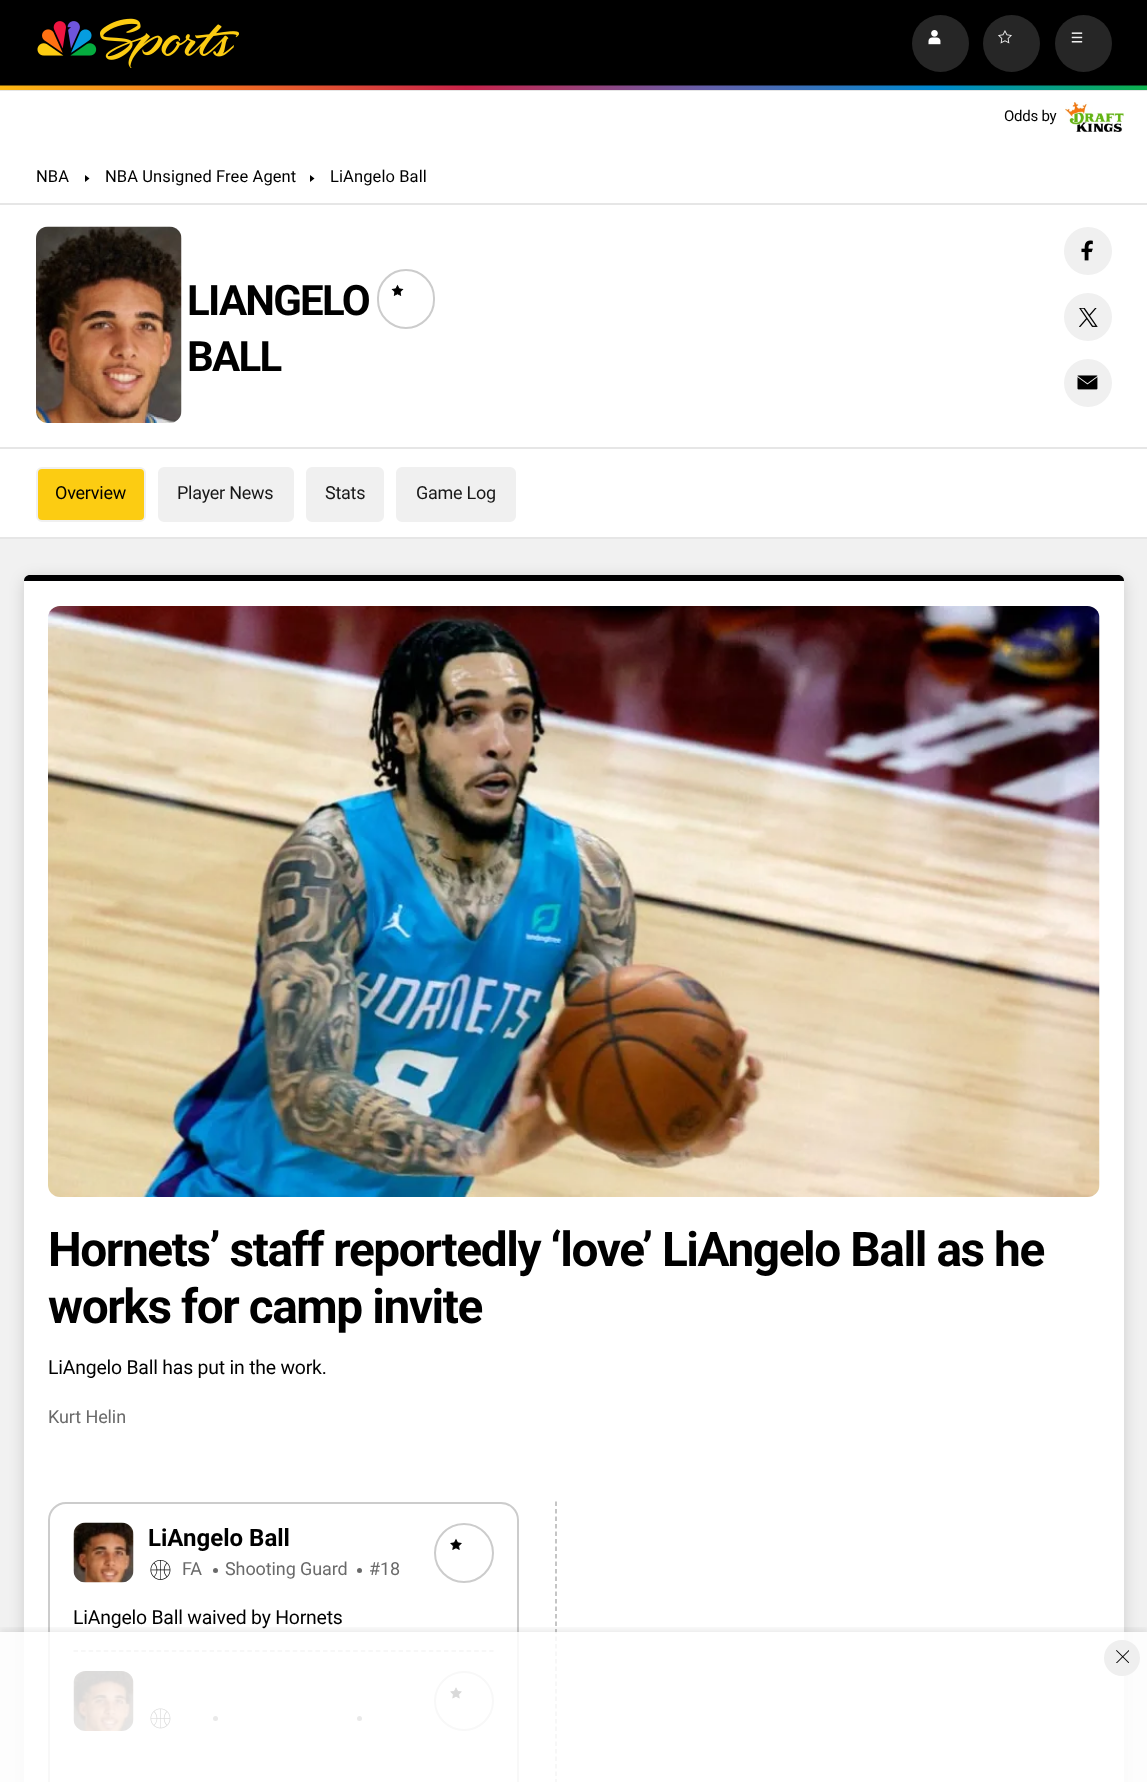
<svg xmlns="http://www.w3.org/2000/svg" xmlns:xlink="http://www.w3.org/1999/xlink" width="1147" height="1782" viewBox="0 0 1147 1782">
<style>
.cls-1{font:15px Roboto;letter-spacing:-0.25px;fill:#000000}
.cls-2{font:16.5px Roboto;letter-spacing:0.1px;fill:#000000}
.cls-3{font:bold 42px Roboto;letter-spacing:-1.75px;fill:#000000}
.cls-4{font:18px Roboto;letter-spacing:-0.25px;fill:#000000}
.cls-5{font:18px Roboto;letter-spacing:-0.25px;fill:#181818}
.cls-6{font:bold 47.8px Roboto;letter-spacing:-1.43px;fill:#000000}
.cls-7{font:19.4px Roboto;letter-spacing:-0.2px;fill:#000000}
.cls-8{font:18px Roboto;letter-spacing:-0.1px;fill:#6a6a6a}
.cls-9{font:bold 24px Roboto;fill:#000000}
</style>
<defs>
<clipPath id="clip1"><rect x="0" y="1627" width="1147" height="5"/></clipPath>
</defs>
<rect width="100%" height="100%" fill="#f1f1f1"/>
<rect fill="#000000" x="0" y="0" width="1147" height="86"/>
<image xlink:href="image0.png" x="37" y="18" width="202" height="50"/>
<circle fill="#262626" cx="940.5" cy="43.5" r="28.5"/>
<image xlink:href="image1.png" x="928" y="30" width="13" height="15"/>
<circle fill="#262626" cx="1011.5" cy="43.5" r="28.5"/>
<image xlink:href="image2.png" x="998" y="30" width="14" height="14"/>
<circle fill="#262626" cx="1083.5" cy="43.5" r="28.5"/>
<image xlink:href="image3.png" x="1071" y="32" width="12" height="11"/>
<image xlink:href="image4.png" x="0" y="85" width="1147" height="5"/>
<rect fill="#ffffff" x="0" y="91" width="1147" height="446"/>
<rect fill="#e6e6e6" x="0" y="90" width="1147" height="1"/>
<image xlink:href="image5.png" x="1065" y="102" width="59" height="30"/>
<rect fill="#e6e6e6" x="0" y="537" width="1147" height="2"/>
<rect fill="#e6e6e6" x="0" y="203" width="1147" height="2"/>
<path fill="#000000" d="M89.5 178.5L85 175V182Z"/>
<path fill="#000000" d="M314.5 178.5L310 175V182Z"/>
<image xlink:href="image6.png" x="36" y="226" width="146" height="197"/>
<rect fill="none" stroke="#cccccc" stroke-width="2" x="378" y="270" width="56" height="58" rx="28"/>
<image xlink:href="image7.png" x="391" y="284" width="13" height="12"/>
<circle fill="#f0f0f0" cx="1088" cy="251" r="24"/>
<image xlink:href="image8.png" x="1081" y="240" width="12" height="21"/>
<circle fill="#f0f0f0" cx="1088" cy="317" r="24"/>
<image xlink:href="image9.png" x="1079" y="308" width="19" height="19"/>
<circle fill="#f0f0f0" cx="1088" cy="383" r="24"/>
<image xlink:href="image10.png" x="1077" y="375" width="21" height="15"/>
<rect fill="#e6e6e6" x="0" y="447" width="1147" height="2"/>
<rect fill="#fccc12" stroke="#f0f0f0" stroke-width="2" x="37" y="468" width="108" height="53" rx="5"/>
<rect fill="#f0f0f0" stroke="#f0f0f0" stroke-width="2" x="159" y="468" width="134" height="53" rx="5"/>
<rect fill="#f0f0f0" stroke="#f0f0f0" stroke-width="2" x="307" y="468" width="76" height="53" rx="5"/>
<rect fill="#f0f0f0" stroke="#f0f0f0" stroke-width="2" x="397" y="468" width="118" height="53" rx="5"/>
<rect fill="#000000" fill-opacity="0.15" filter="blur(7.5px)" x="24" y="578" width="1100" height="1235" rx="8"/>
<rect fill="#ffffff" x="24" y="575" width="1100" height="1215" rx="8"/>
<path fill="#000001" d="M30 575H1118C1121.5 575 1124 577.5 1124 581H24C24 577.5 26.5 575 30 575Z"/>
<image xlink:href="image11.png" x="48" y="606" width="1052" height="591"/>
<path fill="none" stroke="#b3b3b3" stroke-width="1.5" stroke-dasharray="4.5 3" d="M556 1501.5V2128.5"/>
<rect fill="none" stroke="#cccccc" stroke-width="2" x="49" y="1503" width="469" height="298" rx="17"/>
<image xlink:href="image12.png" x="73" y="1522" width="61" height="61"/>
<image xlink:href="image13.png" x="150" y="1560" width="21" height="20"/>
<circle fill="#6a6a6a" cx="215.5" cy="1570.5" r="2.5"/>
<circle fill="#6a6a6a" cx="359.5" cy="1570.5" r="2.5"/>
<circle fill="none" stroke="#cccccc" stroke-width="2" cx="464" cy="1553" r="29"/>
<image xlink:href="image14.png" x="450" y="1538" width="12" height="12"/>
<path fill="none" stroke="#b3b3b3" stroke-width="1.5" stroke-dasharray="4.5 3.06" d="M73.5 1651H493.5"/>
<image xlink:href="image15.png" x="73" y="1671" width="61" height="60"/>
<image xlink:href="image16.png" x="150" y="1708" width="21" height="21"/>
<circle fill="#6a6a6a" cx="215.5" cy="1718.5" r="2.5"/>
<circle fill="#6a6a6a" cx="359.5" cy="1718.5" r="2.5"/>
<circle fill="none" stroke="#cccccc" stroke-width="2" cx="464" cy="1701" r="29"/>
<image xlink:href="image17.png" x="450" y="1687" width="12" height="12"/>
<g clip-path="url(#clip1)">
<rect fill="#000000" fill-opacity="0.08" filter="blur(3px)" x="0" y="1629" width="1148" height="150"/>
</g>
<rect fill="#ffffff" fill-opacity="0.85" x="0" y="1632" width="1147" height="150"/>
<circle fill="#efefef" cx="1122" cy="1658" r="18"/>
<image xlink:href="image18.png" x="1116" y="1650" width="13" height="13"/>
<text class="cls-1" x="1004" y="121">Odds by</text>
<text class="cls-2" x="36" y="182">NBA</text>
<text class="cls-2" x="105" y="182">NBA Unsigned Free Agent</text>
<text class="cls-2" x="330" y="182">LiAngelo Ball</text>
<text class="cls-3"><tspan x="187" y="315">LIANGELO</tspan><tspan x="187" y="371">BALL</tspan></text>
<text class="cls-4" x="55" y="499">Overview</text>
<text class="cls-5" x="177" y="499">Player News</text>
<text class="cls-5" x="325" y="499">Stats</text>
<text class="cls-5" x="416" y="499">Game Log</text>
<text class="cls-6"><tspan x="48" y="1266">Hornets’ staff reportedly ‘love’ LiAngelo Ball as he</tspan><tspan x="48" y="1323">works for camp invite</tspan></text>
<text class="cls-7" x="48" y="1374">LiAngelo Ball has put in the work.</text>
<text class="cls-8" x="48" y="1423">Kurt Helin</text>
<text class="cls-9" x="148" y="1546">LiAngelo Ball</text>
<text class="cls-8" x="182" y="1575">FA</text>
<text class="cls-8" x="225" y="1575">Shooting Guard</text>
<text class="cls-8" x="369" y="1575">#18</text>
<text class="cls-7" x="73" y="1624">LiAngelo Ball waived by Hornets</text>
</svg>
